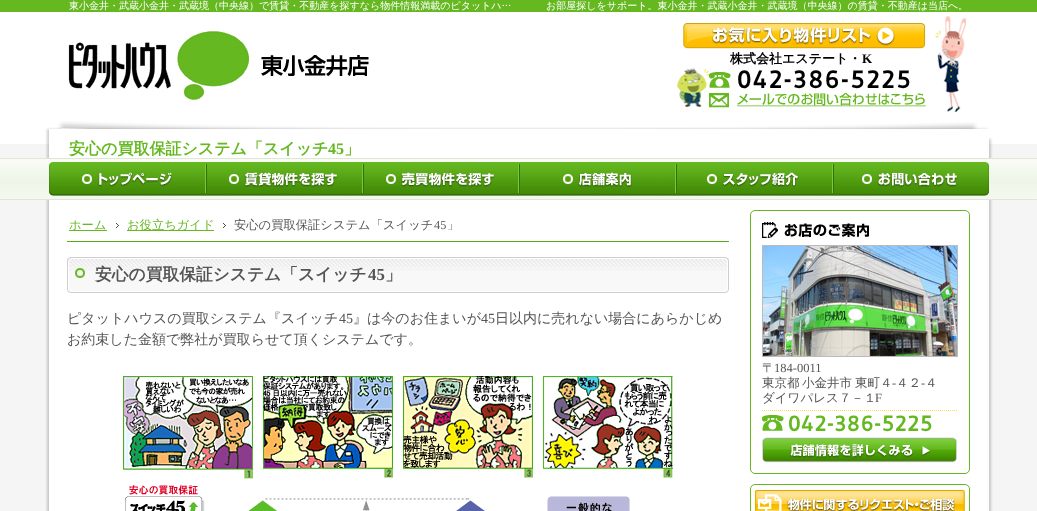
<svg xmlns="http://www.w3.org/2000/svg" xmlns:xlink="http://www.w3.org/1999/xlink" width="1037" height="511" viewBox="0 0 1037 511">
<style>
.cls-1{font:500 10px WenQuanYi Zen Hei;fill:#ffffff}
.cls-2{font:bold 16px WenQuanYi Zen Hei;fill:#65b820}
.cls-3{font:bold 16px Liberation Serif;fill:#65b820}
.cls-4{font:bold 13px WenQuanYi Zen Hei;fill:#000000}
.cls-5{font:bold 13px Liberation Serif;fill:#000000}
.cls-6{font:bold 25px Gudea;letter-spacing:2px;fill:#000000}
.cls-7{font:500 12.3px WenQuanYi Zen Hei;fill:#65b820}
.cls-8{font:500 12.3px WenQuanYi Zen Hei;fill:#555555}
.cls-9{font:12.3px Liberation Serif;fill:#555555}
.cls-10{font:bold 16.75px WenQuanYi Zen Hei;fill:#555555}
.cls-11{font:bold 16.75px Liberation Serif;fill:#555555}
.cls-12{font:500 14px WenQuanYi Zen Hei;fill:#555555}
.cls-13{font:14px Liberation Serif;fill:#555555}
.cls-14{font:500 12.5px WenQuanYi Zen Hei;fill:#555555}
.cls-15{font:12.5px Liberation Serif;fill:#555555}
.cls-16{font:bold 22px Gudea;letter-spacing:1px;fill:#65b820}
</style>
<rect width="100%" height="100%" fill="#f5f5f5"/>
<image xlink:href="image0.png" x="0" y="0" width="1037" height="144"/>
<image xlink:href="image1.png" x="45" y="144" width="948" height="367"/>
<image xlink:href="image2.png" x="45" y="0" width="948" height="121"/>
<image xlink:href="image3.png" x="68" y="31" width="301" height="69"/>
<image xlink:href="image4.png" x="45" y="121" width="948" height="23"/>
<image xlink:href="image5.png" x="935" y="16" width="31" height="96"/>
<image xlink:href="image6.png" x="683" y="23" width="243" height="26"/>
<image xlink:href="image7.png" x="677" y="67" width="33" height="40"/>
<image xlink:href="image8.png" x="709" y="72" width="22" height="16"/>
<image xlink:href="image9.png" x="709" y="93" width="217" height="15"/>
<image xlink:href="image10.png" x="0" y="158" width="1037" height="42"/>
<image xlink:href="image11.png" x="49" y="162" width="156" height="34"/>
<image xlink:href="image12.png" x="82" y="172" width="91" height="15"/>
<image xlink:href="image13.png" x="205" y="162" width="157" height="34"/>
<image xlink:href="image14.png" x="205" y="164" width="2" height="29"/>
<image xlink:href="image15.png" x="229" y="172" width="109" height="16"/>
<image xlink:href="image16.png" x="362" y="162" width="156" height="34"/>
<image xlink:href="image14.png" x="362" y="164" width="2" height="29"/>
<image xlink:href="image17.png" x="386" y="172" width="109" height="16"/>
<image xlink:href="image18.png" x="518" y="162" width="157" height="34"/>
<image xlink:href="image14.png" x="518" y="164" width="2" height="29"/>
<image xlink:href="image19.png" x="563" y="172" width="94" height="16"/>
<image xlink:href="image13.png" x="675" y="162" width="157" height="34"/>
<image xlink:href="image14.png" x="675" y="164" width="2" height="29"/>
<image xlink:href="image20.png" x="707" y="172" width="92" height="15"/>
<image xlink:href="image21.png" x="832" y="162" width="157" height="34"/>
<image xlink:href="image14.png" x="832" y="164" width="2" height="29"/>
<image xlink:href="image22.png" x="862" y="173" width="96" height="15"/>
<rect fill="#5aaa18" x="67" y="241" width="662" height="1"/>
<rect fill="#65b820" x="69" y="230" width="38" height="1"/>
<image xlink:href="image23.png" x="116" y="223" width="3" height="5"/>
<rect fill="#65b820" x="127" y="230" width="87" height="1"/>
<image xlink:href="image23.png" x="223" y="223" width="3" height="5"/>
<rect fill="#f8f8f8" x="67" y="257" width="662" height="36" rx="4"/>
<image xlink:href="image24.png" x="67" y="258" width="662" height="13"/>
<rect fill="none" stroke="#cfcfcf" x="67.5" y="257.5" width="661" height="35" rx="3.5"/>
<image xlink:href="image25.png" x="75" y="268" width="10" height="10"/>
<rect fill="none" stroke="#ffffff" x="68.5" y="258.5" width="659" height="33" rx="3.5"/>
<image xlink:href="image26.png" x="123" y="376" width="130" height="103"/>
<image xlink:href="image27.png" x="263" y="376" width="130" height="102"/>
<image xlink:href="image28.png" x="403" y="376" width="130" height="102"/>
<image xlink:href="image29.png" x="543" y="376" width="130" height="102"/>
<image xlink:href="image30.png" x="125" y="485" width="505" height="26"/>
<rect fill="none" stroke="#65b820" x="750.5" y="210.5" width="219" height="263" rx="4.5"/>
<image xlink:href="image31.png" x="762" y="222" width="107" height="16"/>
<rect fill="none" stroke="#bbbbbb" x="762.5" y="245.5" width="195" height="111"/>
<image xlink:href="image32.png" x="763" y="246" width="194" height="110"/>
<path fill="none" stroke="#ffe242" stroke-dasharray="1 1" d="M762 410.5H958"/>
<image xlink:href="image8.png" x="762" y="415" width="22" height="16"/>
<image xlink:href="image33.png" x="762" y="437" width="195" height="26"/>
<rect fill="none" stroke="#65b820" x="750.5" y="484.5" width="219" height="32" rx="4.5"/>
<image xlink:href="image34.png" x="755" y="490" width="210" height="21"/>
<text class="cls-1" x="69" y="9">東小金井・武蔵小金井・武蔵境（中央線）で賃貸・不動産を探すなら物件情報満載のピタットハ…</text>
<text class="cls-1" x="546" y="9">お部屋探しをサポート。東小金井・武蔵小金井・武蔵境（中央線）の賃貸・不動産は当店へ。</text>
<text class="cls-2" x="69" y="154">安心の買取保証システム「スイッチ</text>
<text class="cls-3" x="328" y="154">45</text>
<text class="cls-2" x="344" y="154">」</text>
<text class="cls-4" x="730" y="63">株式会社エステート・</text>
<text class="cls-5" x="862" y="63">K</text>
<text class="cls-6" x="737" y="88">042-386-5225</text>
<text class="cls-7" x="69" y="229">ホーム</text>
<text class="cls-7" x="127" y="229">お役立ちガイド</text>
<text class="cls-8" x="234" y="229">安心の買取保証システム「スイッチ</text>
<text class="cls-9" x="434" y="229">45</text>
<text class="cls-8" x="447" y="229">」</text>
<text class="cls-10" x="95" y="280">安心の買取保証システム「スイッチ</text>
<text class="cls-11" x="368" y="280">45</text>
<text class="cls-10" x="385" y="280">」</text>
<text class="cls-12" x="67" y="323">ピタットハウスの買取システム『スイッチ</text>
<text class="cls-13" x="339" y="323">45</text>
<text class="cls-12" x="353" y="323">』は今のお住まいが</text>
<text class="cls-13" x="481" y="323">45</text>
<text class="cls-12" x="495" y="323">日以内に売れない場合にあらかじめ</text>
<text class="cls-12" x="67" y="344">お約束した金額で弊社が買取らせて頂くシステムです。</text>
<text class="cls-14" x="762" y="372">〒</text>
<text class="cls-15" x="774" y="372">184-0011</text>
<text class="cls-14" x="762" y="387">東京都</text>
<text class="cls-14" x="802" y="387">小金井市</text>
<text class="cls-14" x="855" y="387">東町４</text>
<text class="cls-15" x="892" y="387">-</text>
<text class="cls-14" x="896" y="387">４２</text>
<text class="cls-15" x="921" y="387">-</text>
<text class="cls-14" x="925" y="387">４</text>
<text class="cls-14" x="762" y="402">ダイワパレス７－１</text>
<text class="cls-15" x="875" y="402">F</text>
<text class="cls-16" x="788" y="431">042-386-5225</text>
</svg>
